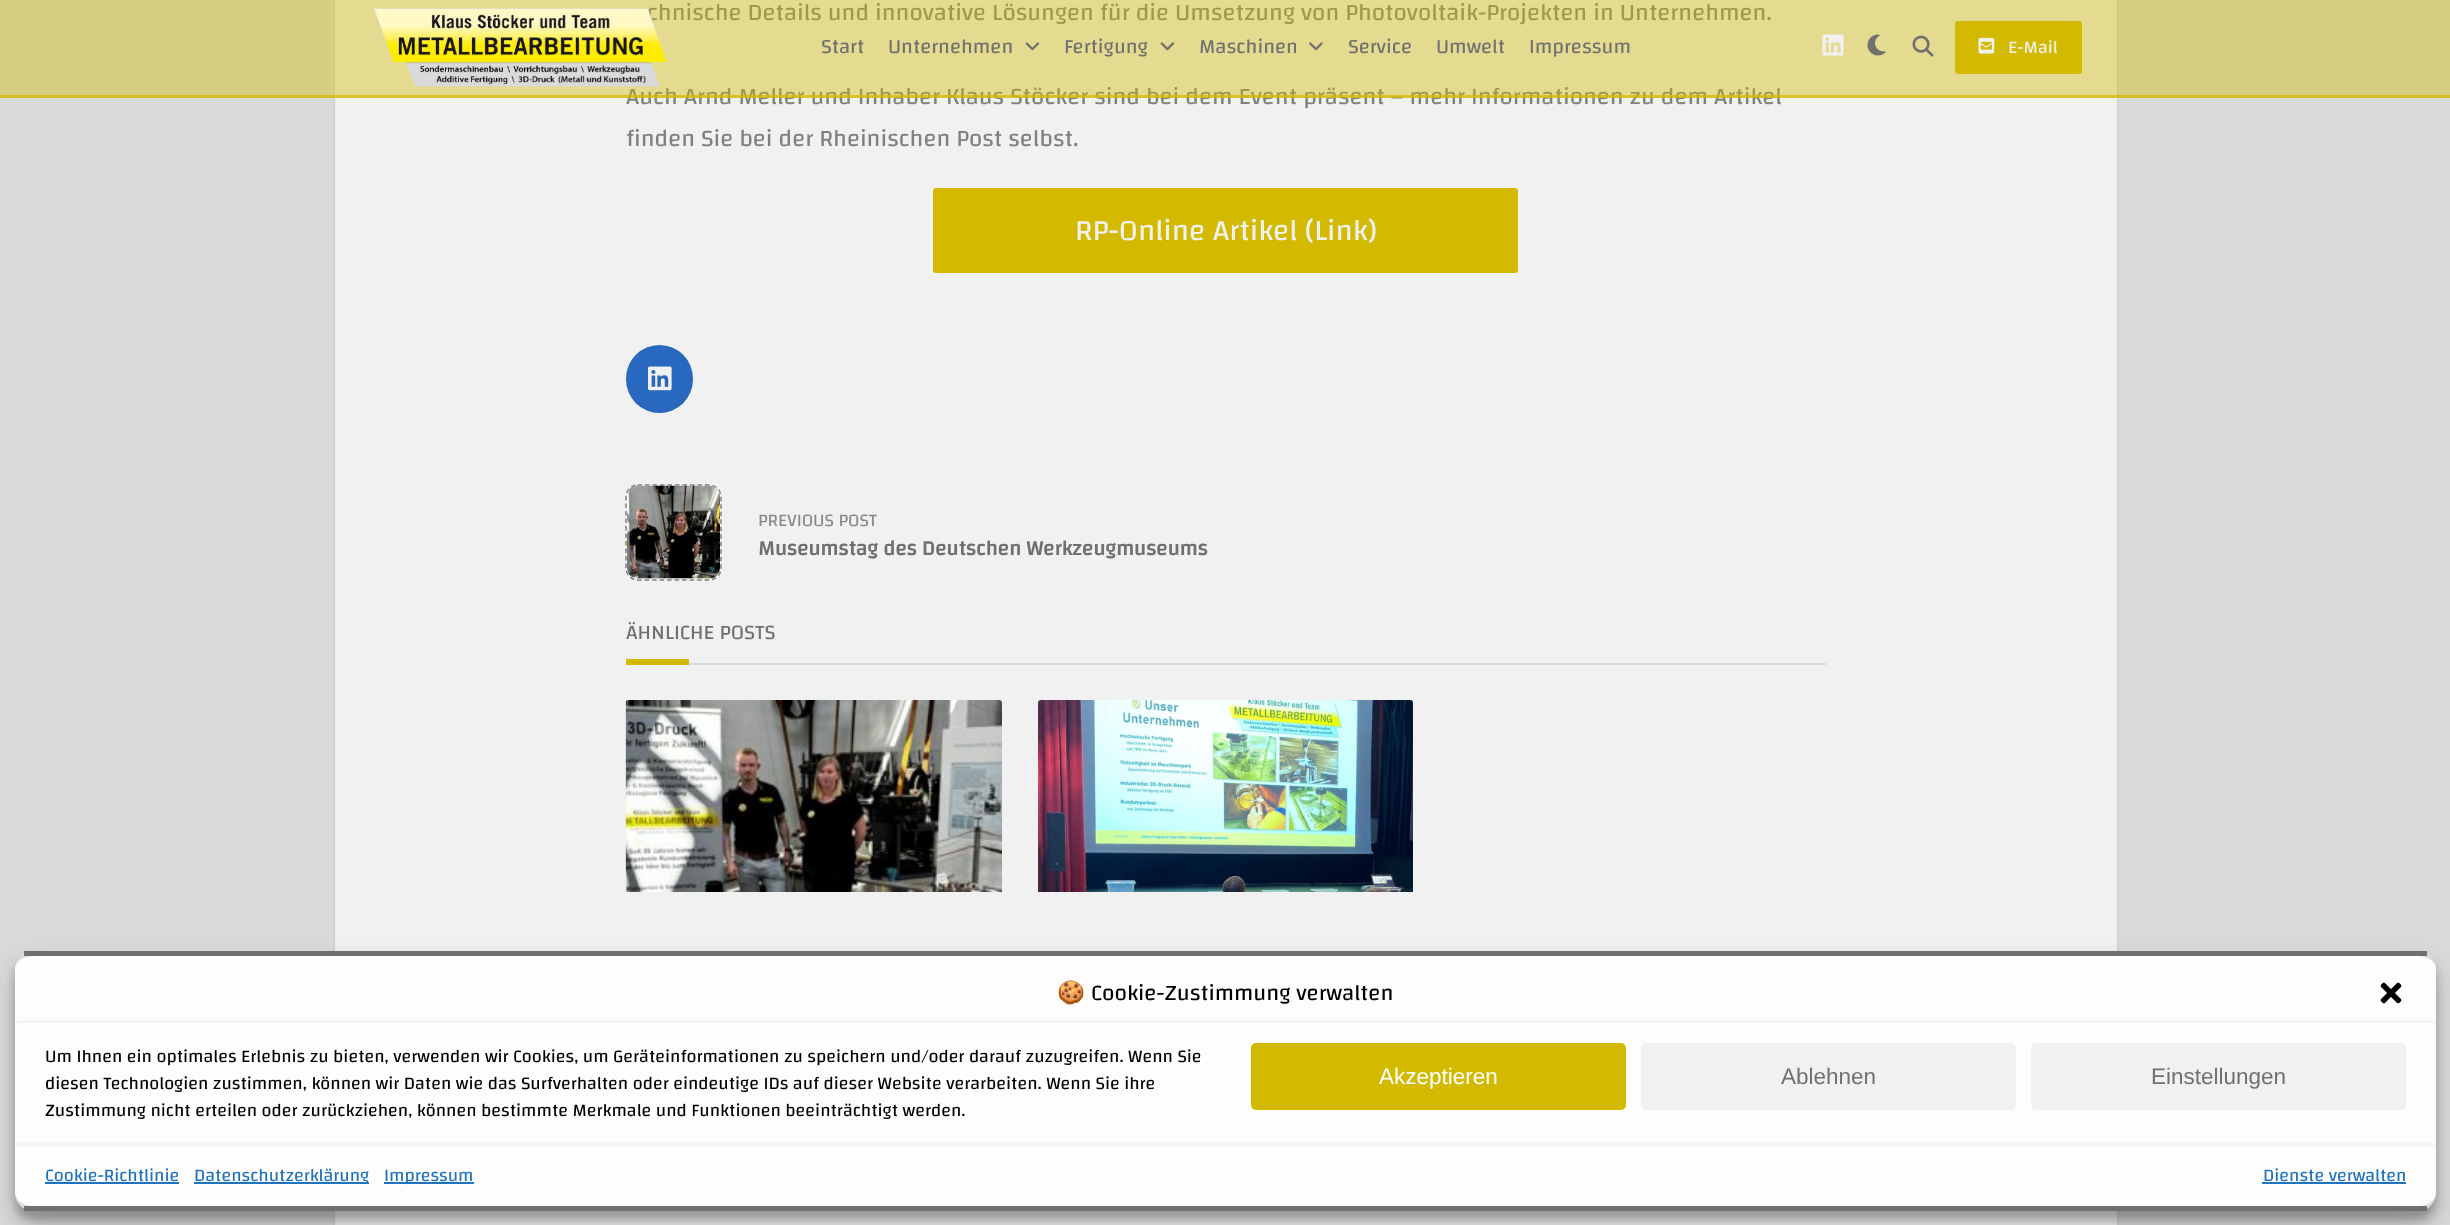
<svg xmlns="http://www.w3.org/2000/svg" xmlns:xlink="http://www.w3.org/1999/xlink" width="2450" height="1225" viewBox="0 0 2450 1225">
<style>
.cls-1{font:24px Changa;fill:#808080}
.cls-2{font:30px Changa;fill:#f1f1f1}
.cls-3{font:18px Changa;fill:#8a8a8a}
.cls-4{font:bold 21px Changa;fill:#707070}
.cls-5{font:21px Changa;fill:#707070}
.cls-6{font:20.5px Changa;fill:#707070}
.cls-7{font:18px Changa;fill:#f1f1f1}
.cls-8{font:22.5px Noto Color Emoji;fill:#000000}
.cls-9{font:22.5px Changa;fill:#000000}
.cls-10{font:18px Changa;fill:#000000}
.cls-11{font:22.5px Liberation Sans;fill:#ffffff}
.cls-12{font:22.5px Liberation Sans;fill:#707070}
.cls-13{font:18px Changa;fill:#1e73be}
</style>
<defs>
<clipPath id="clip1"><path d="M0 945H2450V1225H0ZM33 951H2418C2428 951 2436 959 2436 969V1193C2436 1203 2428 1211 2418 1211H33C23 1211 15 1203 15 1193V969C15 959 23 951 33 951Z" clip-rule="evenodd"/></clipPath>
<clipPath id="clip2"><path d="M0 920H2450V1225H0ZM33 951H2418C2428 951 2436 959 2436 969V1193C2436 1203 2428 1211 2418 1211H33C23 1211 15 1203 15 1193V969C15 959 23 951 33 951Z" clip-rule="evenodd"/></clipPath>
<clipPath id="clip3"><rect x="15" y="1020" width="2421" height="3"/></clipPath>
<clipPath id="clip4"><rect x="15" y="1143" width="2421" height="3"/></clipPath>
</defs>
<rect width="100%" height="100%" fill="#d9dadc"/>
<rect fill="#464749" fill-opacity="0.15" filter="blur(1.5px)" x="335" y="-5" width="1782" height="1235"/>
<rect fill="#f1f1f1" x="335" y="0" width="1782" height="1225"/>
<rect fill="#d3ba00" stroke="#d3ba00" stroke-width="2" x="934" y="189" width="583" height="83" rx="2"/>
<rect fill="#2869bf" x="626" y="345" width="67" height="68" rx="33.5"/>
<image xlink:href="image0.png" x="648" y="366" width="24" height="25"/>
<path fill="none" stroke="#808080" stroke-width="1.5" stroke-dasharray="4.5 3" d="M637.5 485H709.5C715.5 485 721 490.5 721 496.5V568.5C721 574.5 715.5 580 709.5 580H637.5C631.5 580 626 574.5 626 568.5V496.5C626 490.5 631.5 485 637.5 485Z"/>
<image xlink:href="image1.png" x="627" y="485" width="93" height="94"/>
<rect fill="#d9dadc" x="689" y="663" width="1137" height="2"/>
<rect fill="#d3ba00" x="626" y="659" width="63" height="6"/>
<image xlink:href="image2.png" x="625" y="700" width="377" height="192"/>
<image xlink:href="image3.png" x="1038" y="700" width="375" height="192"/>
<g clip-path="url(#clip1)">
<rect fill="#000000" fill-opacity="0.23" filter="blur(4.5px)" x="15" y="960" width="2421" height="260" rx="18"/>
</g>
<g clip-path="url(#clip2)">
<rect fill="#000000" fill-opacity="0.19" filter="blur(15px)" x="15" y="966" width="2421" height="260" rx="18"/>
</g>
<path fill="#fffcfc" d="M33 956H2418C2428 956 2436 962 2436 969V1192C2436 1200 2428 1206 2418 1206H33C23 1206 15 1200 15 1192V969C15 962 23 956 33 956Z"/>
<rect fill="#707070" x="24" y="951" width="2403" height="5"/>
<rect fill="#707070" x="24" y="1206" width="2403" height="5"/>
<image xlink:href="image11.png" x="2380" y="982" width="22" height="22"/>
<g clip-path="url(#clip3)">
<rect fill="#000000" fill-opacity="0.05" filter="blur(2px)" x="15" y="1020" width="2421" height="5"/>
</g>
<rect fill="#d3ba00" stroke="#d3ba00" stroke-width="2" x="1252" y="1044" width="373" height="65" rx="4"/>
<rect fill="#f1f1f1" stroke="#f1f1f1" stroke-width="2" x="1642" y="1044" width="373" height="65" rx="4"/>
<rect fill="#f1f1f1" stroke="#f1f1f1" stroke-width="2" x="2032" y="1044" width="373" height="65" rx="4"/>
<g clip-path="url(#clip4)">
<rect fill="#000000" fill-opacity="0.05" filter="blur(2px)" x="15" y="1143" width="2421" height="5"/>
</g>
<rect fill="#1e73be" x="45" y="1182" width="134" height="2"/>
<rect fill="#1e73be" x="194" y="1182" width="175" height="2"/>
<rect fill="#1e73be" x="384" y="1182" width="90" height="2"/>
<rect fill="#1e73be" x="2262" y="1182" width="144" height="2"/>
<text class="cls-1" x="647" y="20">chnische Details und innovative Lösungen für die Umsetzung von Photovoltaik-Projekten in Unternehmen.</text>
<text class="cls-1"><tspan x="626" y="104">Auch Arnd Meller und Inhaber Klaus Stöcker sind bei dem Event präsent – mehr Informationen zu dem Artikel</tspan><tspan x="626" y="146">finden Sie bei der Rheinischen Post selbst.</tspan></text>
<text class="cls-2" x="1075" y="240">RP-Online Artikel (Link)</text>
<text class="cls-3" x="758" y="526">PREVIOUS POST</text>
<text class="cls-4" x="758" y="555">Museumstag des Deutschen Werkzeugmuseums</text>
<text class="cls-5" x="626" y="639">ÄHNLICHE POSTS</text>
<rect fill="#d4bb00" fill-opacity="0.4" x="0" y="0" width="2450" height="98"/>
<rect fill="#d4bb00" fill-opacity="0.75" x="0" y="95" width="2450" height="3"/>
<image xlink:href="image4.png" x="374" y="8" width="293" height="79"/>
<text class="cls-6" x="821" y="53">Start</text>
<text class="cls-6" x="888" y="53">Unternehmen</text>
<image xlink:href="image5.png" x="1025" y="42" width="15" height="9"/>
<text class="cls-6" x="1064" y="53">Fertigung</text>
<image xlink:href="image5.png" x="1160" y="42" width="15" height="9"/>
<text class="cls-6" x="1199" y="53">Maschinen</text>
<image xlink:href="image6.png" x="1309" y="42" width="14" height="9"/>
<text class="cls-6" x="1348" y="53">Service</text>
<text class="cls-6" x="1436" y="53">Umwelt</text>
<text class="cls-6" x="1529" y="53">Impressum</text>
<image xlink:href="image7.png" x="1822" y="34" width="22" height="22"/>
<image xlink:href="image8.png" x="1867" y="34" width="19" height="22"/>
<image xlink:href="image9.png" x="1912" y="35" width="22" height="22"/>
<rect fill="#d3ba00" stroke="#d3ba00" stroke-width="2" x="1956" y="22" width="125" height="51" rx="2"/>
<image xlink:href="image10.png" x="1978" y="37" width="17" height="17"/>
<text class="cls-7" x="2008" y="53">E-Mail</text>
<text class="cls-8" x="1057" y="1000">🍪</text>
<text class="cls-9" x="1091" y="1000">Cookie-Zustimmung verwalten</text>
<text class="cls-10"><tspan x="45" y="1062">Um Ihnen ein optimales Erlebnis zu bieten, verwenden wir Cookies, um Geräteinformationen zu speichern und/oder darauf zuzugreifen. Wenn Sie</tspan><tspan x="45" y="1089">diesen Technologien zustimmen, können wir Daten wie das Surfverhalten oder eindeutige IDs auf dieser Website verarbeiten. Wenn Sie ihre</tspan><tspan x="45" y="1116">Zustimmung nicht erteilen oder zurückziehen, können bestimmte Merkmale und Funktionen beeinträchtigt werden.</tspan></text>
<text class="cls-11" x="1379" y="1084">Akzeptieren</text>
<text class="cls-12" x="1781" y="1084">Ablehnen</text>
<text class="cls-12" x="2151" y="1084">Einstellungen</text>
<text class="cls-13" x="45" y="1181">Cookie-Richtlinie</text>
<text class="cls-13" x="194" y="1181">Datenschutzerklärung</text>
<text class="cls-13" x="384" y="1181">Impressum</text>
<text class="cls-13" x="2263" y="1181">Dienste verwalten</text>
</svg>
